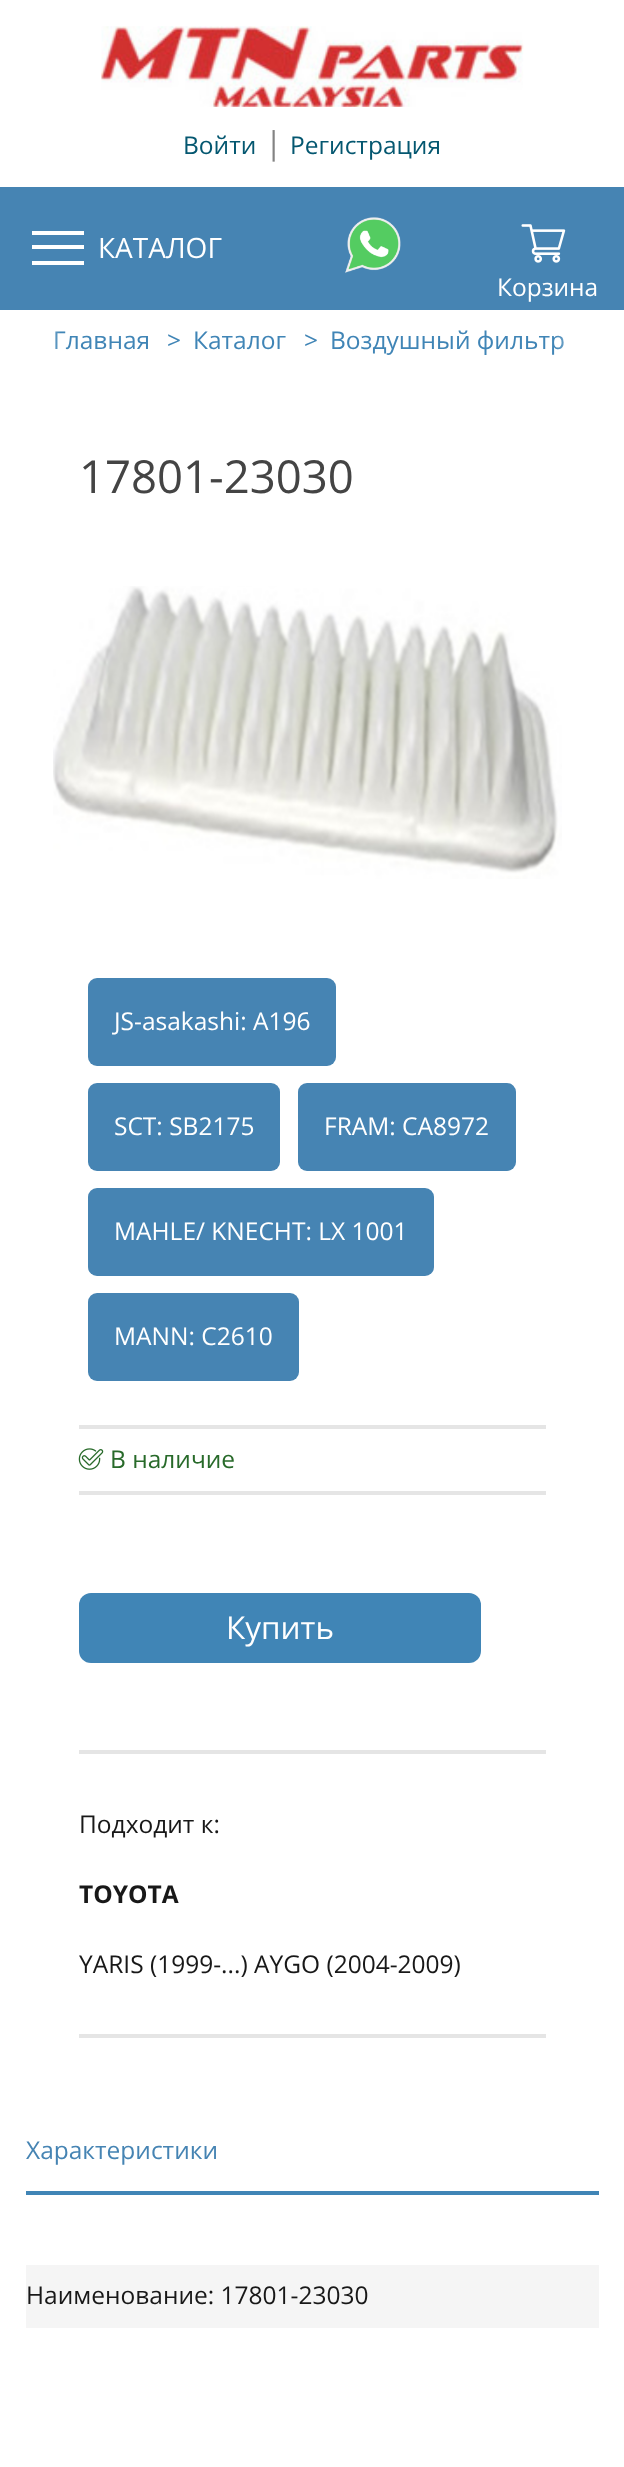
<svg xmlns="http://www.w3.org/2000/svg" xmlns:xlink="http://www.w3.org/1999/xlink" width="624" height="2467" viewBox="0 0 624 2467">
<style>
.cls-1{font:24.5px Open Sans;fill:#045770}
.cls-2{font:31.5px Open Sans;fill:#838383}
.cls-3{font:28px Open Sans;fill:#ffffff}
.cls-4{font:24.5px Open Sans;fill:#ffffff}
.cls-5{font:24.5px Open Sans;fill:#4085b6}
.cls-6{font:45.5px Open Sans;fill:#444444}
.cls-7{font:24.5px Open Sans;fill:#286a2a}
.cls-8{font:31.5px Open Sans;fill:#ffffff}
.cls-9{font:24.5px Open Sans;fill:#181818}
.cls-10{font:bold 24.5px Open Sans;fill:#181818}
.cls-11{font:24.5px Open Sans;fill:#4684b3}
</style>
<defs>
<linearGradient id="g1" gradientUnits="userSpaceOnUse" x1="26" y1="346" x2="61" y2="346"><stop offset="0.05" stop-color="#ffffff"/><stop offset="1" stop-color="#ffffff" stop-opacity="0"/></linearGradient>
<linearGradient id="g2" gradientUnits="userSpaceOnUse" x1="599" y1="346" x2="555" y2="346"><stop offset="0.05" stop-color="#ffffff"/><stop offset="1" stop-color="#ffffff" stop-opacity="0"/></linearGradient>
</defs>
<rect width="100%" height="100%" fill="#ffffff"/>
<image xlink:href="image0.png" x="101" y="26" width="423" height="81"/>
<rect fill="#4684b3" x="0" y="187" width="624" height="123"/>
<rect fill="#ffffff" x="32" y="231" width="52" height="4"/>
<rect fill="#ffffff" x="32" y="245" width="52" height="4"/>
<rect fill="#ffffff" x="32" y="261" width="52" height="4"/>
<image xlink:href="image1.png" x="345" y="217" width="56" height="56"/>
<image xlink:href="image2.png" x="521" y="224" width="45" height="39"/>
<image xlink:href="image3.png" x="53" y="586" width="509" height="293"/>
<rect fill="#e5e5e5" x="79" y="1425" width="467" height="4"/>
<rect fill="#4684b3" x="88" y="978" width="248" height="88" rx="9"/>
<rect fill="#4684b3" x="88" y="1083" width="192" height="88" rx="9"/>
<rect fill="#4684b3" x="298" y="1083" width="218" height="88" rx="9"/>
<rect fill="#4684b3" x="88" y="1188" width="346" height="88" rx="9"/>
<rect fill="#4684b3" x="88" y="1293" width="211" height="88" rx="9"/>
<rect fill="#e5e5e5" x="79" y="1491" width="467" height="4"/>
<image xlink:href="image4.png" x="78" y="1448" width="26" height="22"/>
<rect fill="#e5e5e5" x="79" y="1750" width="467" height="4"/>
<rect fill="#4085b6" x="79" y="1593" width="402" height="70" rx="12"/>
<rect fill="#e5e5e5" x="79" y="2034" width="467" height="4"/>
<rect fill="#4085b6" x="26" y="2191" width="573" height="4"/>
<rect fill="#f5f5f5" x="26" y="2265" width="573" height="63"/>
<text class="cls-1" x="183" y="154">Войти</text>
<text class="cls-2" x="265" y="154">|</text>
<text class="cls-1" x="290" y="154">Регистрация</text>
<text class="cls-3" x="98" y="258">КАТАЛОГ</text>
<text class="cls-4" x="497" y="296">Корзина</text>
<text class="cls-5" x="53" y="349">Главная</text>
<text class="cls-5" x="167" y="349">&gt;</text>
<text class="cls-5" x="193" y="349">Каталог</text>
<text class="cls-5" x="304" y="349">&gt;</text>
<text class="cls-5" x="330" y="349">Воздушный фильтр</text>
<rect fill="url(#g1)" x="54" y="331" width="6" height="18"/>
<rect fill="url(#g2)" x="556" y="335" width="8" height="15"/>
<text class="cls-6" x="79" y="493">17801-23030</text>
<text class="cls-4" x="114" y="1030">JS-asakashi: A196</text>
<text class="cls-4" x="114" y="1135">SCT: SB2175</text>
<text class="cls-4" x="324" y="1135">FRAM: CA8972</text>
<text class="cls-4" x="114" y="1240">MAHLE/ KNECHT: LX 1001</text>
<text class="cls-4" x="114" y="1345">MANN: C2610</text>
<text class="cls-7" x="110" y="1468">В наличие</text>
<text class="cls-8" x="226" y="1639">Купить</text>
<text class="cls-9" x="79" y="1833">Подходит к:</text>
<text class="cls-10" x="79" y="1903">TOYOTA</text>
<text class="cls-9" x="79" y="1973">YARIS (1999-...) AYGO (2004-2009)</text>
<text class="cls-11" x="26" y="2159">Характеристики</text>
<text class="cls-9" x="26" y="2304">Наименование: 17801-23030</text>
</svg>
